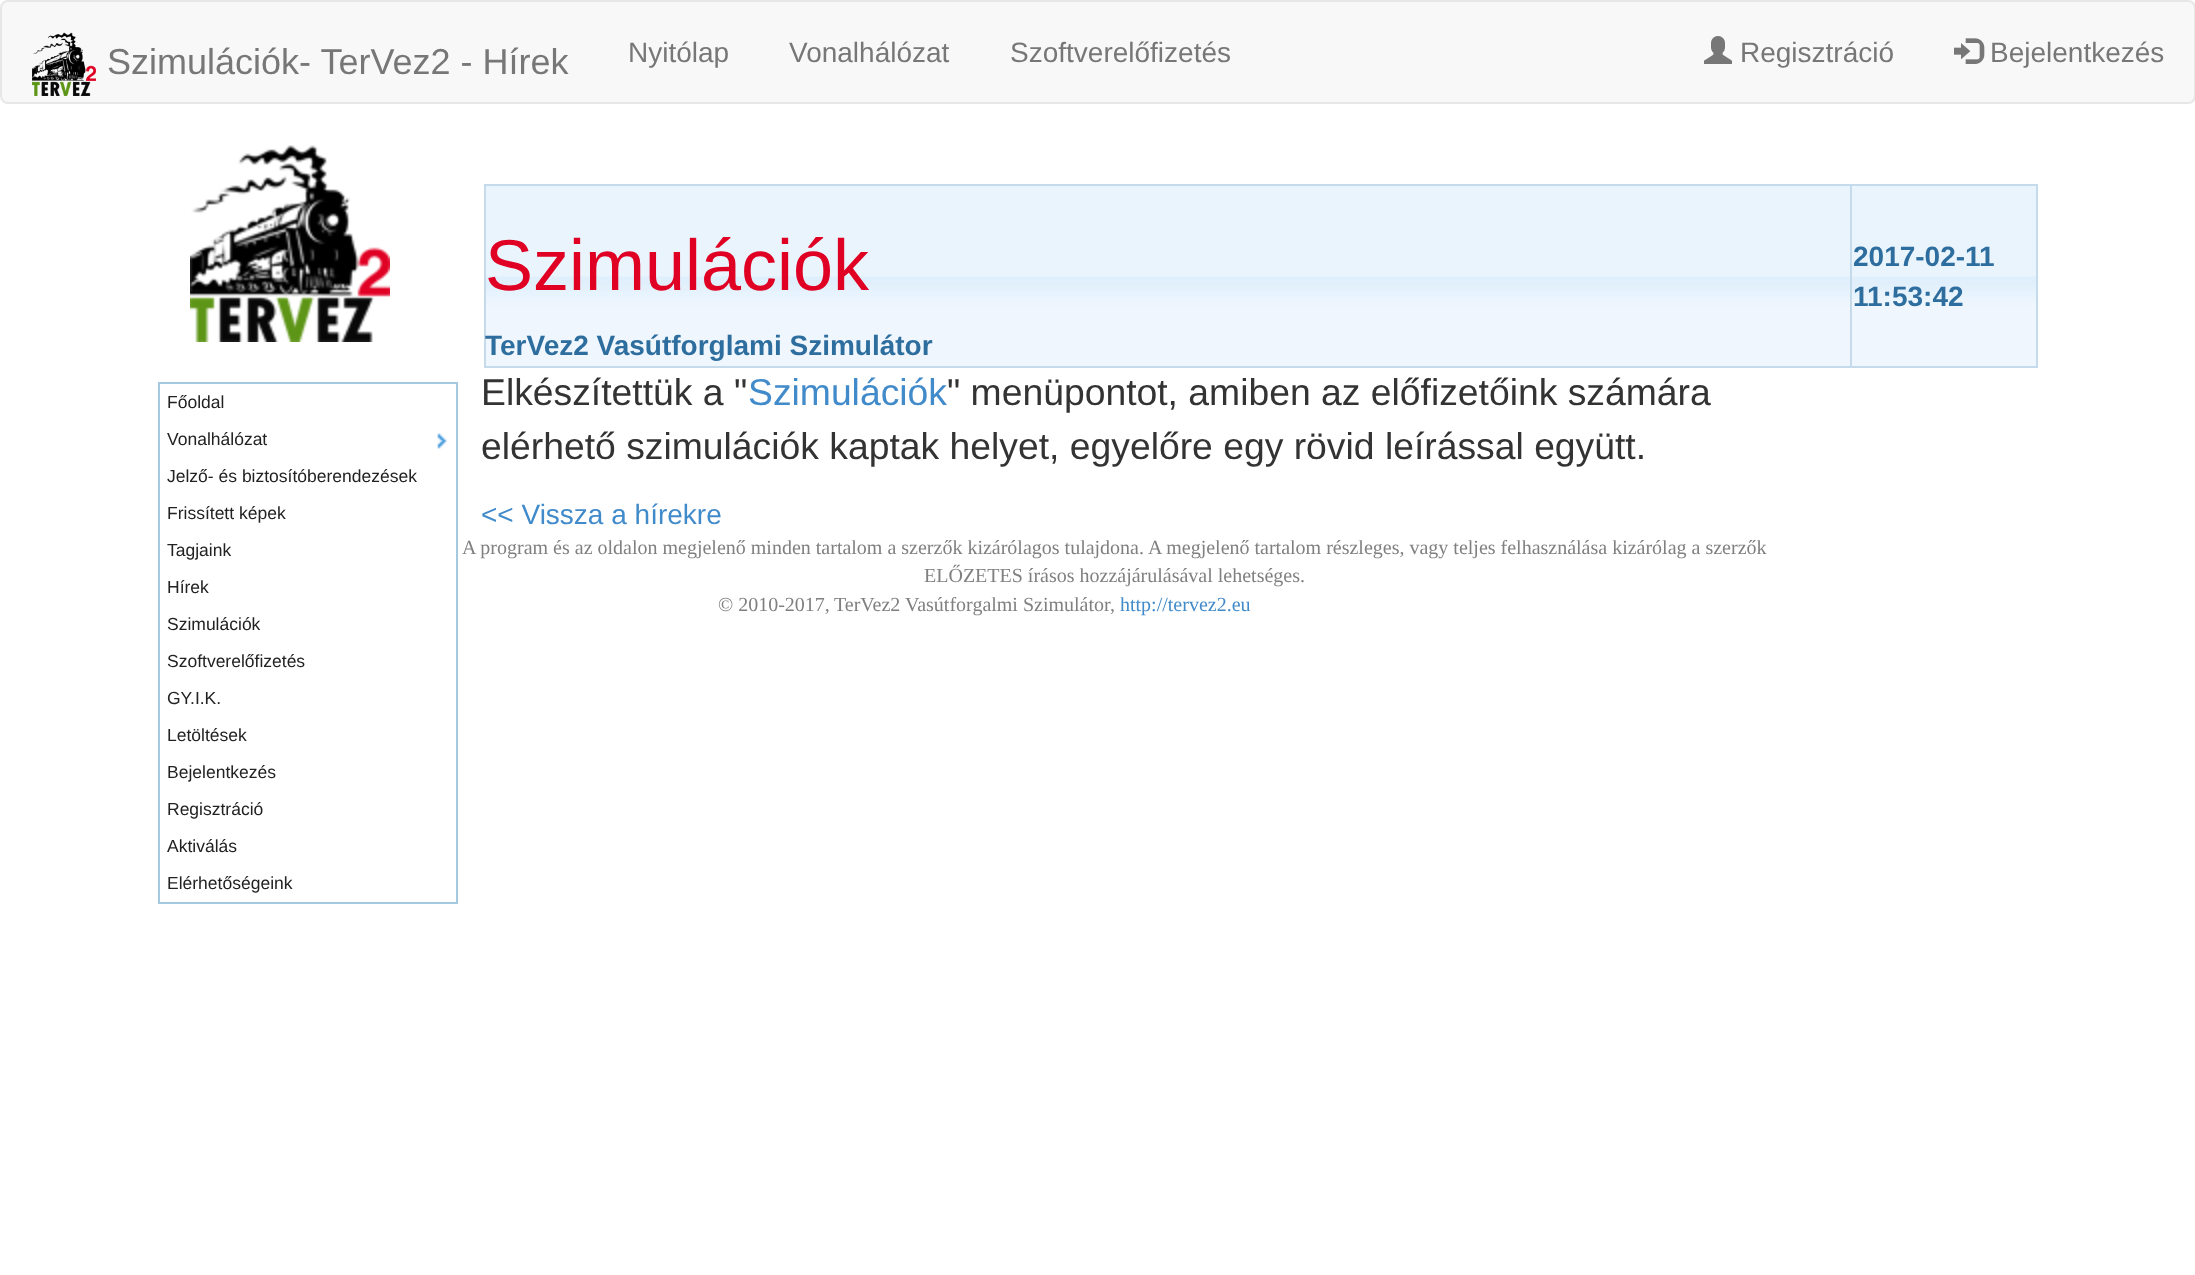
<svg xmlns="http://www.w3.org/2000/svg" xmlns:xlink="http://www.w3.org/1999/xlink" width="2195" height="1275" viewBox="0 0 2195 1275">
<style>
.cls-1{font:36px Liberation Sans;fill:#777777}
.cls-2{font:28px Liberation Sans;fill:#777777}
.cls-3{font:17.5px Liberation Sans;fill:#222222}
.cls-4{font:72px Liberation Sans;fill:#df0024}
.cls-5{font:bold 28px Liberation Sans;fill:#2e6e9e}
.cls-6{font:37.3px Liberation Sans;fill:#333333}
.cls-7{font:37.3px Liberation Sans;fill:#428bca}
.cls-8{font:28px Liberation Sans;fill:#428bca}
.cls-9{font:20px Liberation Serif;fill:#808080}
.cls-10{font:20px Liberation Serif;fill:#428bca}
</style>
<rect width="100%" height="100%" fill="#ffffff"/>
<rect fill="#f8f8f8" stroke="#e7e7e7" stroke-width="2" x="1" y="1" width="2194" height="102" rx="7"/>
<image xlink:href="image0.png" x="32" y="32" width="64" height="64"/>
<image xlink:href="image1.png" x="1704" y="36" width="28" height="28"/>
<image xlink:href="image2.png" x="1954" y="38" width="31" height="26"/>
<image xlink:href="image3.png" x="190" y="145" width="200" height="197"/>
<rect fill="none" stroke="#a6c9e2" stroke-width="2" x="159" y="383" width="298" height="520"/>
<image xlink:href="image4.png" x="437" y="433" width="10" height="16"/>
<image xlink:href="image5.png" x="486" y="186" width="1364" height="180"/>
<rect fill="#c5dbec" x="1850" y="184" width="188" height="2"/>
<rect fill="#c5dbec" x="2036" y="184" width="2" height="184"/>
<rect fill="#c5dbec" x="1850" y="366" width="188" height="2"/>
<rect fill="#c5dbec" x="1850" y="184" width="2" height="184"/>
<rect fill="#c5dbec" x="484" y="184" width="1368" height="2"/>
<rect fill="#c5dbec" x="484" y="366" width="1368" height="2"/>
<rect fill="#c5dbec" x="484" y="184" width="2" height="184"/>
<image xlink:href="image6.png" x="1852" y="186" width="184" height="180"/>
<text class="cls-1" x="107" y="74">Szimulációk- TerVez2 - Hírek</text>
<text class="cls-2" x="628" y="62">Nyitólap</text>
<text class="cls-2" x="789" y="62">Vonalhálózat</text>
<text class="cls-2" x="1010" y="62">Szoftverelőfizetés</text>
<text class="cls-2" x="1740" y="62">Regisztráció</text>
<text class="cls-2" x="1990" y="62">Bejelentkezés</text>
<text class="cls-3" x="167" y="408">Főoldal</text>
<text class="cls-3" x="167" y="445">Vonalhálózat</text>
<text class="cls-3" x="167" y="482">Jelző- és biztosítóberendezések</text>
<text class="cls-3" x="167" y="519">Frissített képek</text>
<text class="cls-3" x="167" y="556">Tagjaink</text>
<text class="cls-3" x="167" y="593">Hírek</text>
<text class="cls-3" x="167" y="630">Szimulációk</text>
<text class="cls-3" x="167" y="667">Szoftverelőfizetés</text>
<text class="cls-3" x="167" y="704">GY.I.K.</text>
<text class="cls-3" x="167" y="741">Letöltések</text>
<text class="cls-3" x="167" y="778">Bejelentkezés</text>
<text class="cls-3" x="167" y="815">Regisztráció</text>
<text class="cls-3" x="167" y="852">Aktiválás</text>
<text class="cls-3" x="167" y="889">Elérhetőségeink</text>
<text class="cls-4" x="485" y="290">Szimulációk</text>
<text class="cls-5" x="485" y="355">TerVez2 Vasútforglami Szimulátor</text>
<text class="cls-5"><tspan x="1853" y="266">2017-02-11</tspan><tspan x="1853" y="306">11:53:42</tspan></text>
<text class="cls-6" x="481" y="405">Elkészítettük a "</text>
<text class="cls-7" x="748" y="405">Szimulációk</text>
<text class="cls-6" x="947" y="405">" menüpontot, amiben az előfizetőink számára</text>
<text class="cls-6" x="481" y="459">elérhető szimulációk kaptak helyet, egyelőre egy rövid leírással együtt.</text>
<text class="cls-8" x="481" y="524">&lt;&lt; Vissza a hírekre</text>
<text class="cls-9" x="462" y="554">A program és az oldalon megjelenő minden tartalom a szerzők kizárólagos tulajdona. A megjelenő tartalom részleges, vagy teljes felhasználása kizárólag a szerzők</text>
<text class="cls-9" x="924" y="582">ELŐZETES írásos hozzájárulásával lehetséges.</text>
<text class="cls-9" x="718" y="611">© 2010-2017,</text>
<text class="cls-9" x="834" y="611">TerVez2 Vasútforgalmi Szimulátor</text>
<text class="cls-9" x="1110" y="611">,</text>
<text class="cls-10" x="1120" y="611">http://tervez2.eu</text>
</svg>
